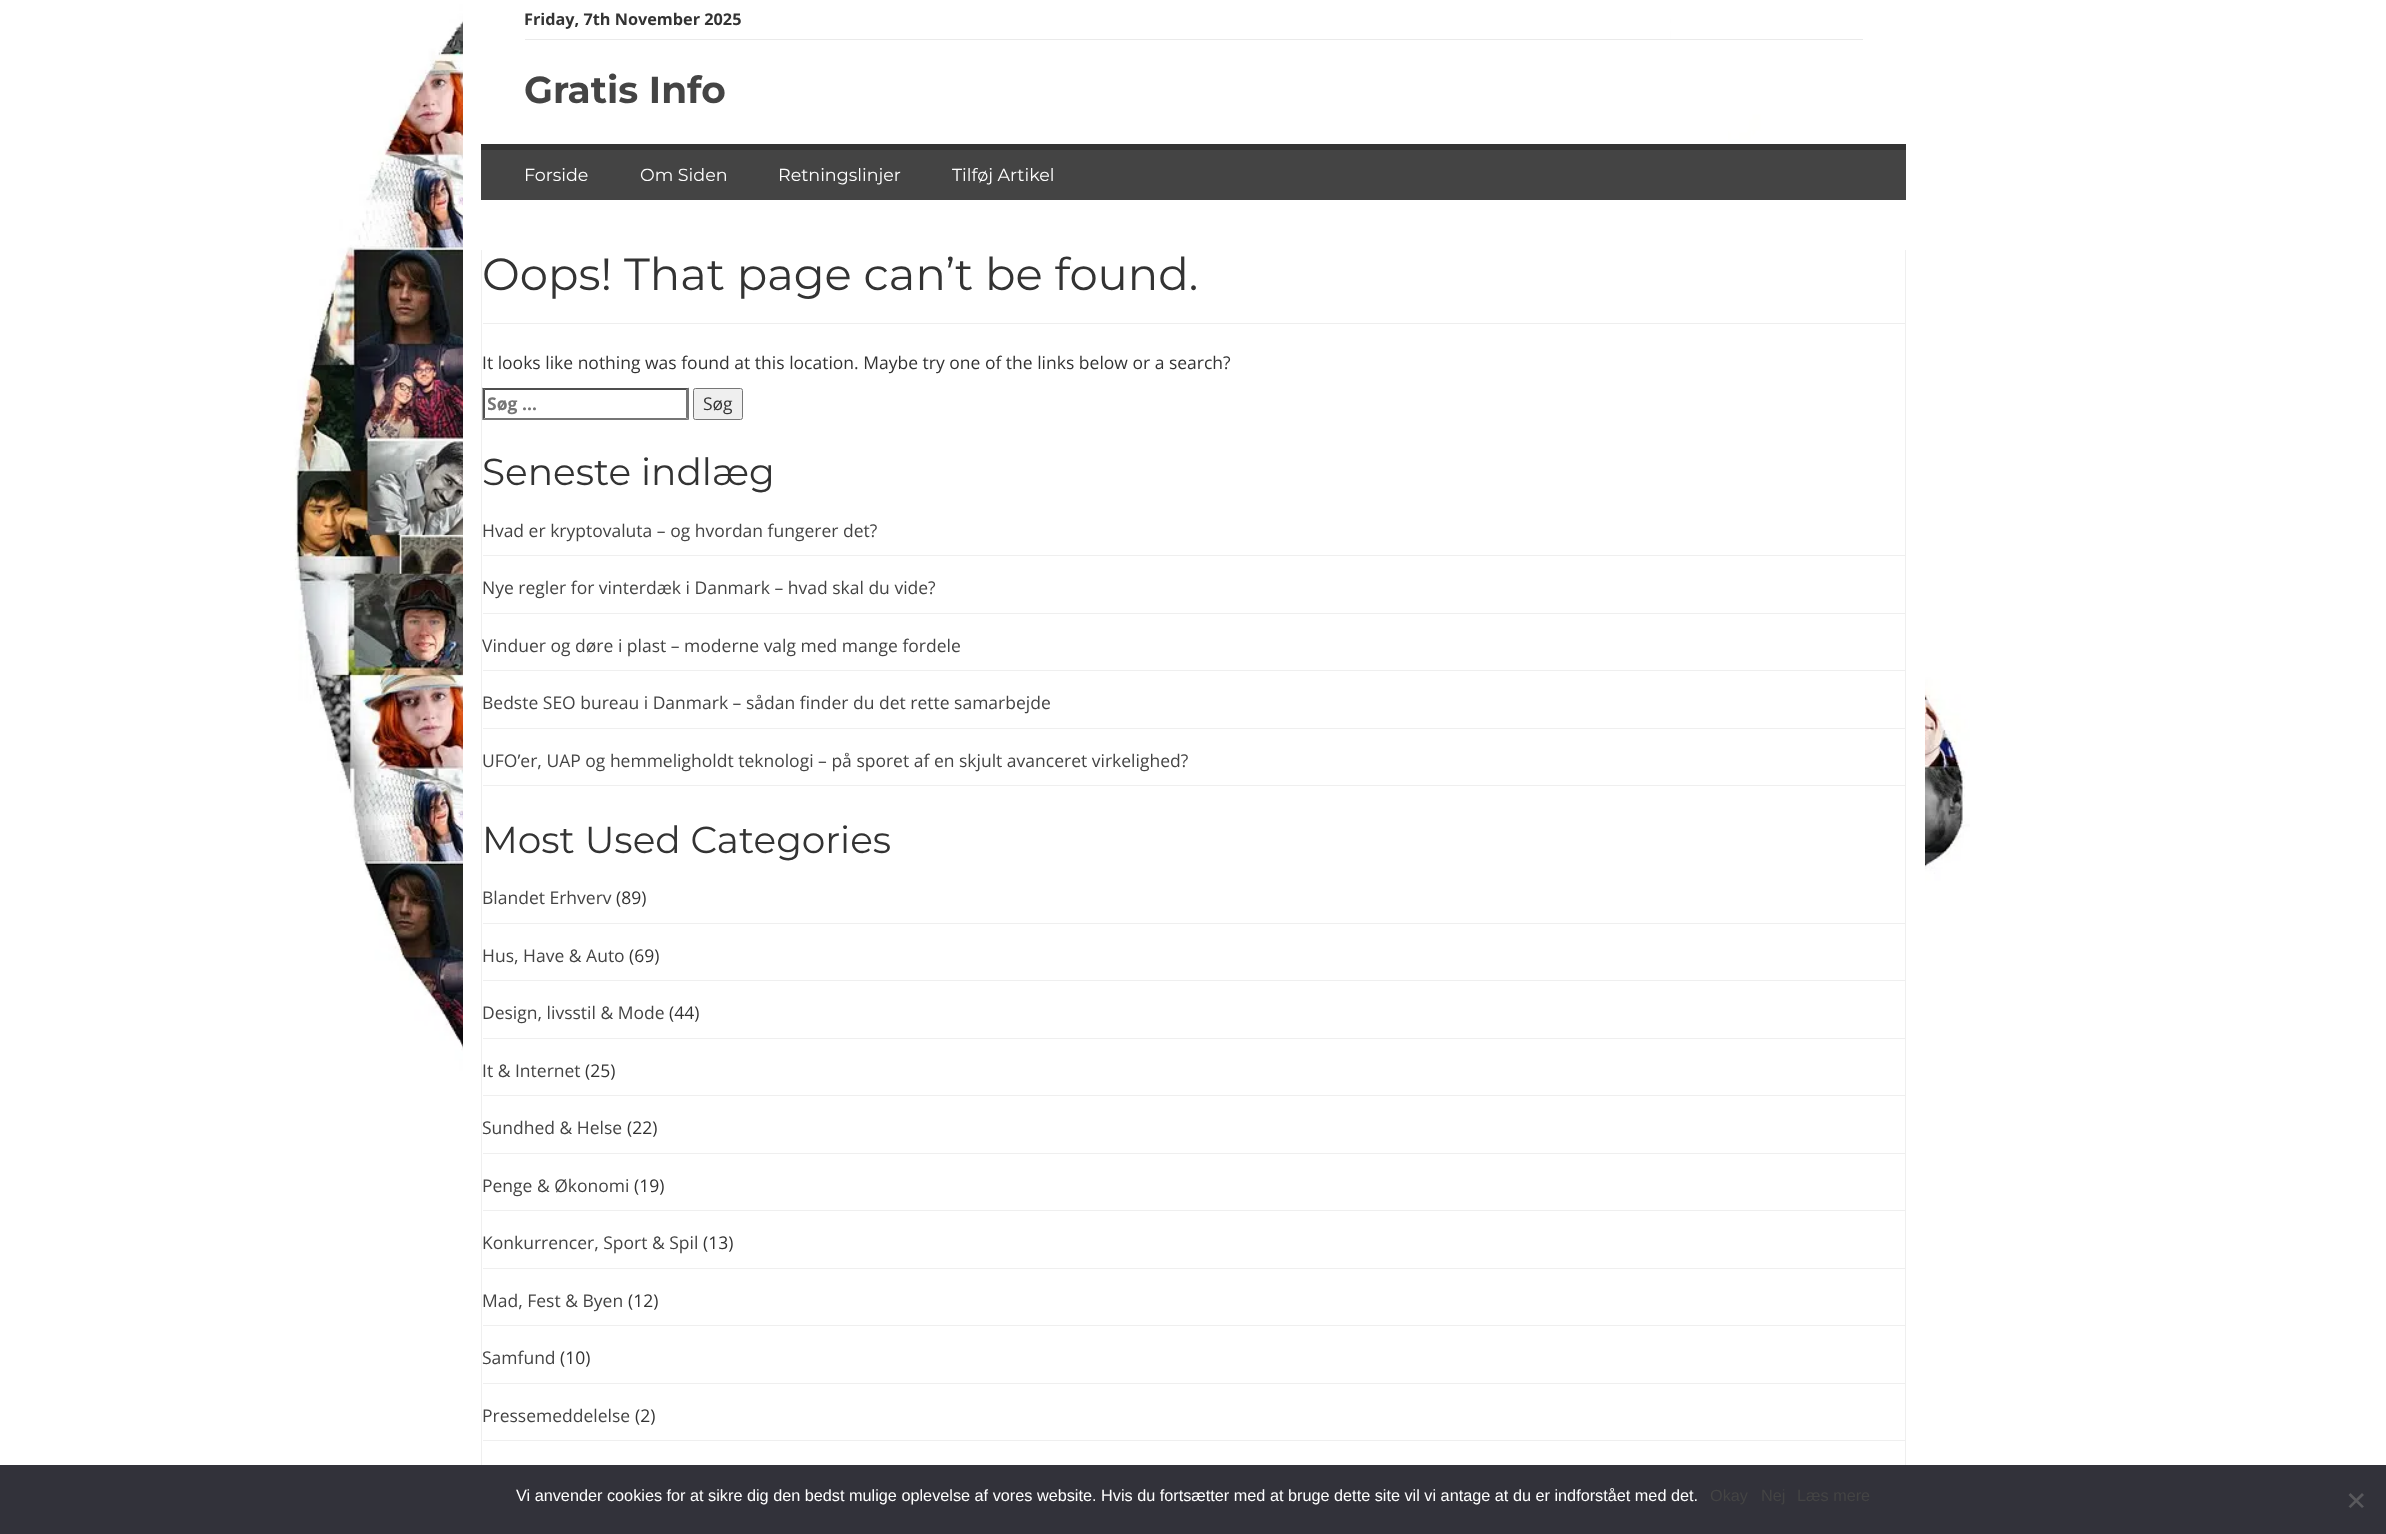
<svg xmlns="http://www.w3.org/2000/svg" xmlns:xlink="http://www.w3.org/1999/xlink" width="2386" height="1534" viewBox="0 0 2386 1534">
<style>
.cls-1{font:bold 16.25px Open Sans;fill:#333333}
.cls-2{font:bold 37.5px Montserrat;fill:#444444}
.cls-3{font:17.5px Montserrat;fill:#ffffff}
.cls-4{font:45px Montserrat;fill:#333333}
.cls-5{font:17.5px Open Sans;fill:#333333}
.cls-6{font:bold 17.5px Open Sans;fill:#757575}
.cls-7{font:37.5px Montserrat;fill:#333333}
.cls-8{font:17.5px Open Sans;fill:#444444}
.cls-9{font:16.25px Liberation Sans;fill:#ffffff}
.cls-10{font:16.25px Liberation Sans;fill:#444444}
</style>
<defs>
<clipPath id="clip1"><rect x="488" y="391" width="191" height="24"/></clipPath>
</defs>
<rect width="100%" height="100%" fill="#ffffff"/>
<image xlink:href="image0.png" x="290" y="0" width="1680" height="1465"/>
<rect fill="#ffffff" x="463" y="0" width="1207" height="40"/>
<rect fill="#eaeaea" x="525" y="39" width="1338" height="1"/>
<rect fill="#ffffff" x="463" y="40" width="1265" height="104"/>
<rect fill="#ffffff" x="463" y="144" width="1289" height="56"/>
<rect fill="#444444" x="481" y="150" width="1425" height="50"/>
<rect fill="#333333" x="481" y="144" width="1425" height="6"/>
<rect fill="#ffffff" x="463" y="200" width="1462" height="1265"/>
<rect fill="#efefef" x="1905" y="250" width="1" height="1215"/>
<rect fill="#efefef" x="481" y="250" width="1" height="1215"/>
<rect fill="#eeeeee" x="483" y="323" width="1422" height="1"/>
<path fill="#4f4f4f" d="M482 388H689L686 390H485Z"/>
<path fill="#767676" d="M689 387.5V420L686 417.5V390Z"/>
<path fill="#767676" d="M689 420H482L485 418H686Z"/>
<path fill="#4f4f4f" d="M482.5 420V387.5L485 390V417.5Z"/>
<rect fill="#efefef" stroke="#767676" x="693.5" y="388.5" width="49" height="31" rx="2"/>
<rect fill="#efefef" x="483" y="555" width="1422" height="1"/>
<rect fill="#efefef" x="483" y="613" width="1422" height="1"/>
<rect fill="#efefef" x="483" y="670" width="1422" height="1"/>
<rect fill="#efefef" x="483" y="728" width="1422" height="1"/>
<rect fill="#efefef" x="483" y="785" width="1422" height="1"/>
<rect fill="#efefef" x="483" y="923" width="1422" height="1"/>
<rect fill="#efefef" x="483" y="980" width="1422" height="1"/>
<rect fill="#efefef" x="483" y="1038" width="1422" height="1"/>
<rect fill="#efefef" x="483" y="1095" width="1422" height="1"/>
<rect fill="#efefef" x="483" y="1153" width="1422" height="1"/>
<rect fill="#efefef" x="483" y="1210" width="1422" height="1"/>
<rect fill="#efefef" x="483" y="1268" width="1422" height="1"/>
<rect fill="#efefef" x="483" y="1325" width="1422" height="1"/>
<rect fill="#efefef" x="483" y="1383" width="1422" height="1"/>
<rect fill="#efefef" x="483" y="1440" width="1422" height="1"/>
<rect fill="#32323a" x="0" y="1465" width="2386" height="69"/>
<path fill="#59595d" d="M2362 1493L2364 1495L2350.5 1508L2348.5 1506.5Z"/>
<path fill="#59595d" d="M2348.5 1495L2350.5 1493L2364 1506.5L2362 1508Z"/>
<text class="cls-1" x="524" y="25">Friday, 7th November 2025</text>
<text class="cls-2" x="524" y="103">Gratis Info</text>
<text class="cls-3" x="524" y="181">Forside</text>
<text class="cls-3" x="640" y="181">Om Siden</text>
<text class="cls-3" x="778" y="181">Retningslinjer</text>
<text class="cls-3" x="952" y="181">Tilføj Artikel</text>
<text class="cls-4" x="482" y="290">Oops! That page can’t be found.</text>
<text class="cls-5" x="482" y="369">It looks like nothing was found at this location. Maybe try one of the links below or a search?</text>
<g clip-path="url(#clip1)">
<text class="cls-6" x="487" y="410">Søg …</text>
</g>
<text class="cls-5" x="703" y="410">Søg</text>
<text class="cls-7" x="482" y="485">Seneste indlæg</text>
<text class="cls-8" x="482" y="537">Hvad er kryptovaluta – og hvordan fungerer det?</text>
<text class="cls-8" x="482" y="594">Nye regler for vinterdæk i Danmark – hvad skal du vide?</text>
<text class="cls-8" x="482" y="652">Vinduer og døre i plast – moderne valg med mange fordele</text>
<text class="cls-8" x="482" y="709">Bedste SEO bureau i Danmark – sådan finder du det rette samarbejde</text>
<text class="cls-8" x="482" y="767">UFO’er, UAP og hemmeligholdt teknologi – på sporet af en skjult avanceret virkelighed?</text>
<text class="cls-7" x="482" y="853">Most Used Categories</text>
<text class="cls-8" x="482" y="904">Blandet Erhverv</text>
<text class="cls-5" x="616" y="904">(89)</text>
<text class="cls-8" x="482" y="962">Hus, Have &amp; Auto</text>
<text class="cls-5" x="629" y="962">(69)</text>
<text class="cls-8" x="482" y="1019">Design, livsstil &amp; Mode</text>
<text class="cls-5" x="669" y="1019">(44)</text>
<text class="cls-8" x="482" y="1077">It &amp; Internet</text>
<text class="cls-5" x="585" y="1077">(25)</text>
<text class="cls-8" x="482" y="1134">Sundhed &amp; Helse</text>
<text class="cls-5" x="627" y="1134">(22)</text>
<text class="cls-8" x="482" y="1192">Penge &amp; Økonomi</text>
<text class="cls-5" x="634" y="1192">(19)</text>
<text class="cls-8" x="482" y="1249">Konkurrencer, Sport &amp; Spil</text>
<text class="cls-5" x="703" y="1249">(13)</text>
<text class="cls-8" x="482" y="1307">Mad, Fest &amp; Byen</text>
<text class="cls-5" x="628" y="1307">(12)</text>
<text class="cls-8" x="482" y="1364">Samfund</text>
<text class="cls-5" x="560" y="1364">(10)</text>
<text class="cls-8" x="482" y="1422">Pressemeddelelse</text>
<text class="cls-5" x="635" y="1422">(2)</text>
<text class="cls-9" x="516" y="1501">Vi anvender cookies for at sikre dig den bedst mulige oplevelse af vores website. Hvis du fortsætter med at bruge dette site vil vi antage at du er indforstået med det.</text>
<text class="cls-10" x="1710" y="1501">Okay</text>
<text class="cls-10" x="1761" y="1501">Nej</text>
<text class="cls-10" x="1797" y="1501">Læs mere</text>
</svg>
